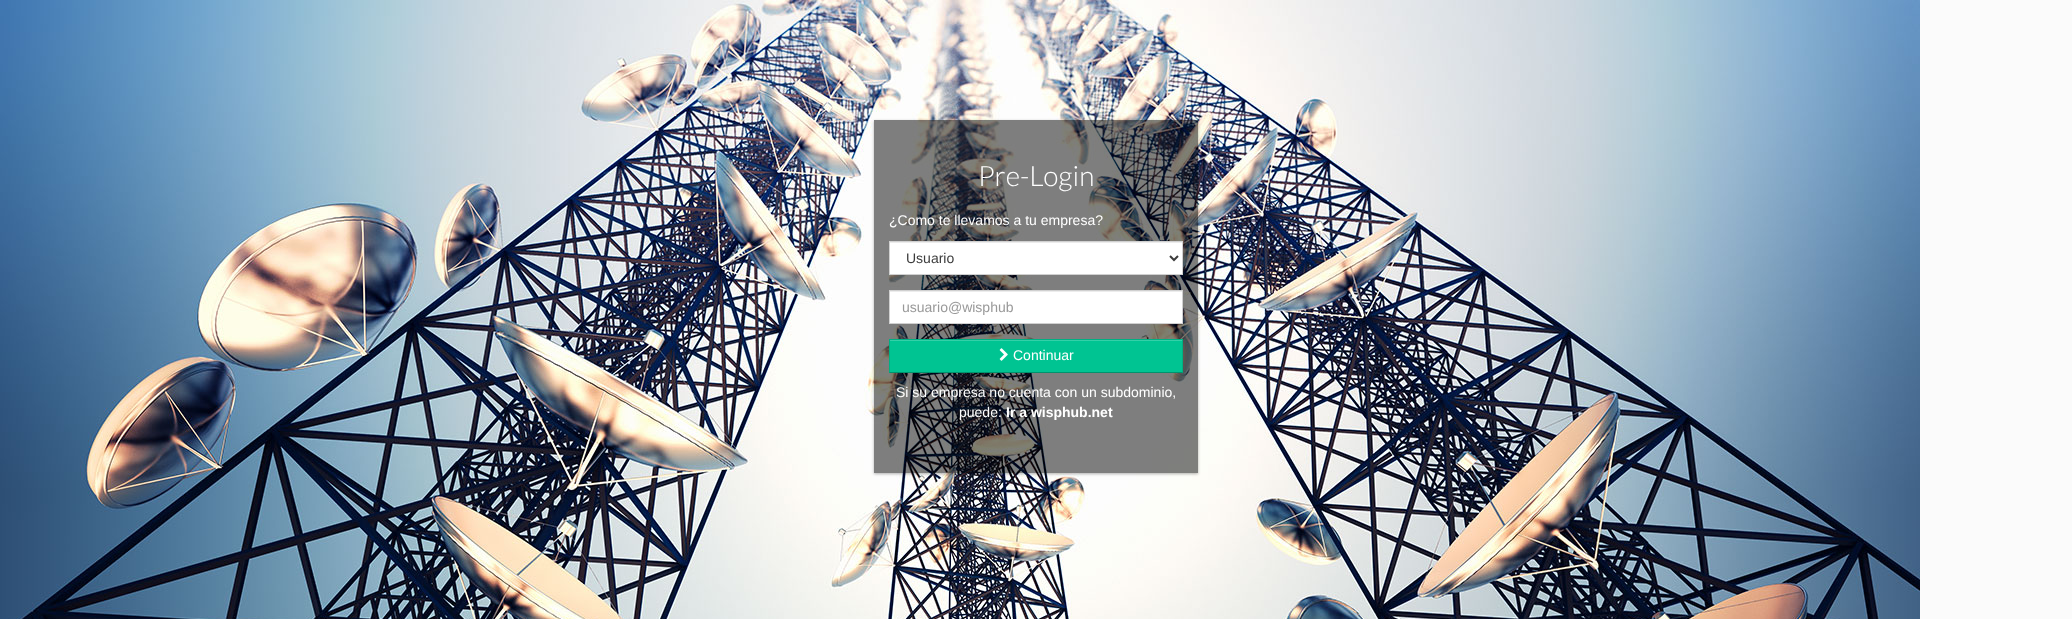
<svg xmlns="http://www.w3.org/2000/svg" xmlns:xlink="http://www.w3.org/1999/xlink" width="2072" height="619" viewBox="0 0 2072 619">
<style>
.cls-1{font:300 28px Lato;fill:#ffffff}
.cls-2{font:14px Liberation Sans;fill:#ffffff}
.cls-3{font:14px Liberation Sans;fill:#3c3c3c}
.cls-4{font:14px Liberation Sans;fill:#999999}
.cls-5{font:bold 14px Liberation Sans;fill:#ffffff}
</style>
<defs>
<clipPath id="clip1"><path d="M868 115H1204V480H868ZM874 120H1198V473H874Z" clip-rule="evenodd"/></clipPath>
</defs>
<rect width="100%" height="100%" fill="#fbfbfb"/>
<image xlink:href="image0.png" x="0" y="0" width="1920" height="619"/>
<g clip-path="url(#clip1)">
<rect fill="#000000" fill-opacity="0.3" filter="blur(1.5px)" x="874" y="121" width="324" height="353"/>
</g>
<rect fill="#000000" fill-opacity="0.5" x="874" y="120" width="324" height="353"/>
<rect fill="#ffffff" x="890" y="243" width="292" height="31"/>
<rect fill="#ececec" x="890" y="242" width="292" height="1"/>
<rect fill="none" stroke="#d0d0d0" x="889.5" y="241.5" width="293" height="33"/>
<path fill="none" stroke="#3c3c3c" stroke-width="2" d="M1170 256L1174 260L1178 256"/>
<rect fill="#ffffff" x="890" y="292" width="292" height="31"/>
<rect fill="#ececec" x="890" y="291" width="292" height="1"/>
<rect fill="none" stroke="#d0d0d0" x="889.5" y="290.5" width="293" height="33"/>
<rect fill="#00c492" x="889" y="339" width="294" height="34"/>
<rect fill="#33d0a8" x="890" y="340" width="292" height="1"/>
<path fill="#00b083" d="M889 339H1183L1182 340H890Z"/>
<path fill="#000000" fill-opacity="0.1" d="M1183 339V373L1182 372V340Z"/>
<path fill="#000000" fill-opacity="0.25" d="M1183 373H889L890 372H1182Z"/>
<path fill="#000000" fill-opacity="0.1" d="M889 373V339L890 340V372Z"/>
<image xlink:href="image1.png" x="999" y="348" width="9" height="13"/>
<text class="cls-1" x="978" y="186">Pre-Login</text>
<text class="cls-2" x="889" y="225">¿Como te llevamos a tu empresa?</text>
<text class="cls-3" x="906" y="263">Usuario</text>
<text class="cls-4" x="902" y="312">usuario@wisphub</text>
<text class="cls-2" x="1013" y="360">Continuar</text>
<text class="cls-2" x="896" y="397">Si su empresa no cuenta con un subdominio,</text>
<text class="cls-2" x="959" y="417">puede:</text>
<text class="cls-5" x="1006" y="417">Ir a wisphub.net</text>
</svg>
